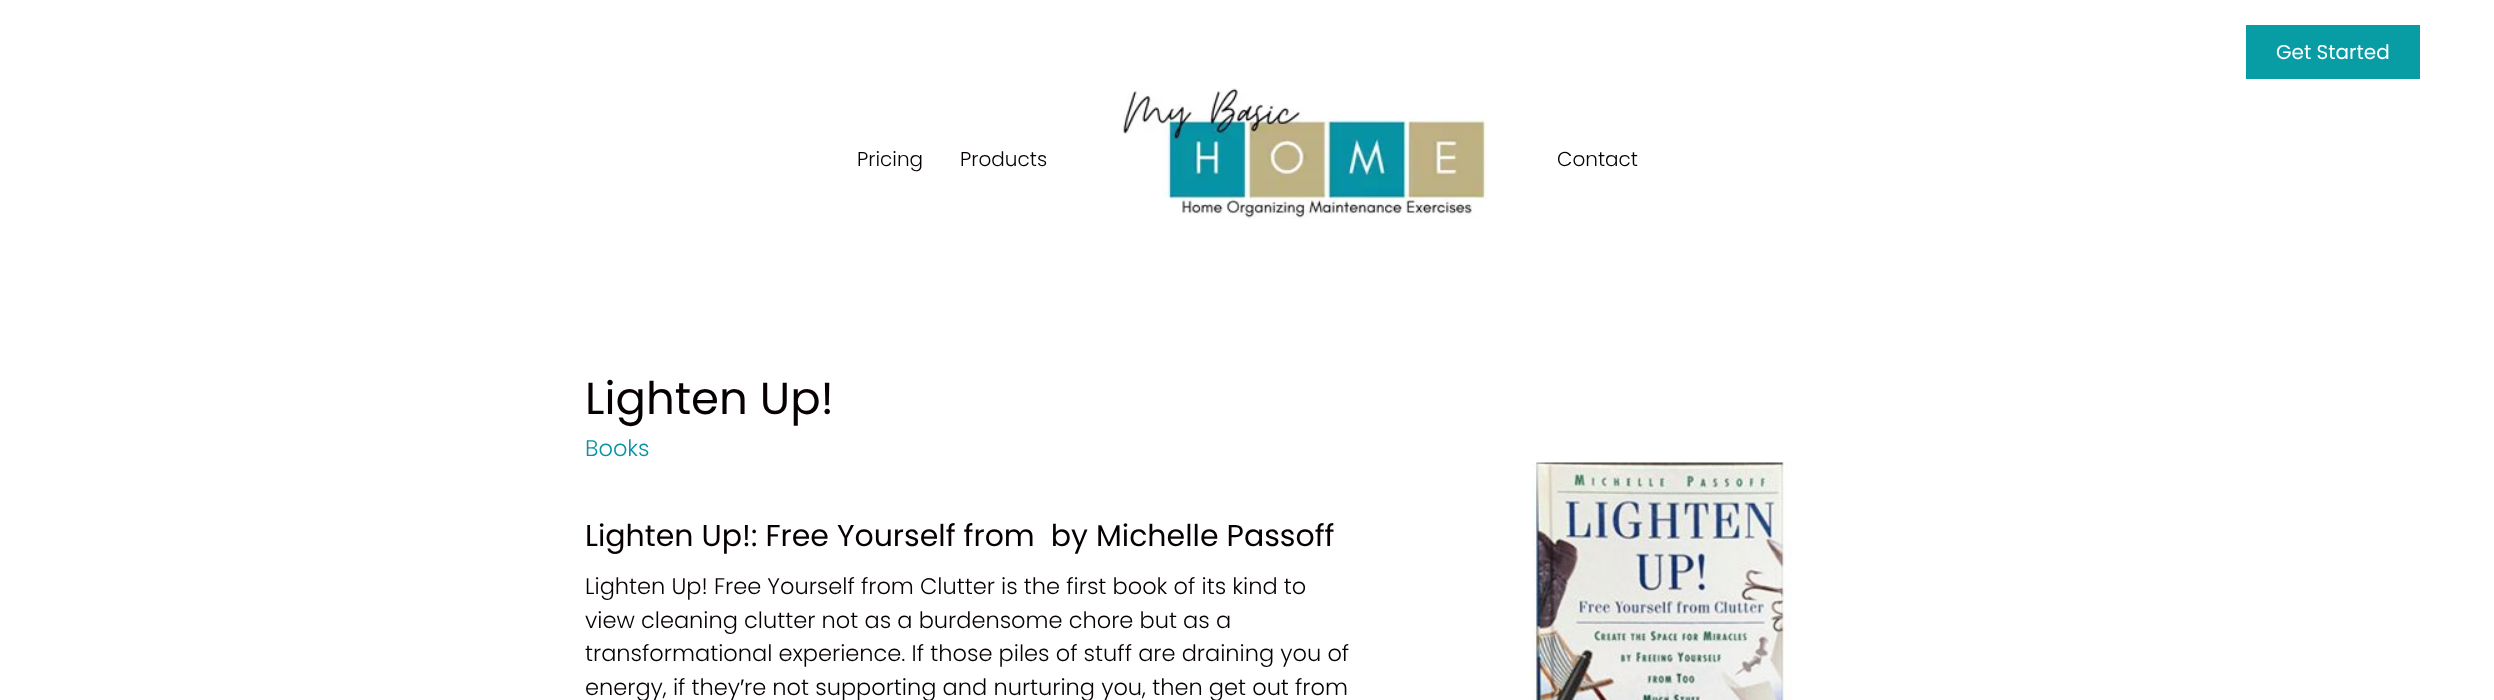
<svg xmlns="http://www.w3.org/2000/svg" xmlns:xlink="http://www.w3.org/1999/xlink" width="2494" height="700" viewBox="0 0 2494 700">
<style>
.cls-1{font:20px Poppins;fill:#ffffff}
.cls-2{font:300 20px Poppins;fill:#070002}
.cls-3{font:45px Poppins;fill:#070002}
.cls-4{font:300 22.5px Poppins;fill:#0892a5}
.cls-5{font:30px Poppins;fill:#070002}
.cls-6{font:300 22.5px Poppins;fill:#070002}
.cls-7{font:22.5px Liberation Sans;fill:#070002}
</style>
<rect width="100%" height="100%" fill="#ffffff"/>
<rect fill="#089da5" x="2246" y="25" width="174" height="54"/>
<image xlink:href="image0.png" x="1122" y="88" width="366" height="131"/>
<image xlink:href="image1.png" x="1532" y="462" width="260" height="238"/>
<text class="cls-1" x="2276" y="59">Get Started</text>
<text class="cls-2" x="857" y="166">Pricing</text>
<text class="cls-2" x="960" y="166">Products</text>
<text class="cls-2" x="1557" y="166">Contact</text>
<text class="cls-3" x="585" y="414">Lighten Up!</text>
<text class="cls-4" x="585" y="456">Books</text>
<text class="cls-5" xml:space="preserve" x="585" y="546">Lighten Up!: Free Yourself from  by Michelle Passoff</text>
<text class="cls-6"><tspan x="585" y="594">Lighten Up! Free Yourself from Clutter is the first book of its kind to</tspan><tspan x="585" y="628">view cleaning clutter not as a burdensome chore but as a</tspan><tspan x="585" y="661">transformational experience. If those piles of stuff are draining you of</tspan><tspan x="585" y="695">energy, if they</tspan></text>
<text class="cls-7" x="740" y="695">′</text>
<text class="cls-6" x="744" y="695">re not supporting and nurturing you, then get out from</text>
</svg>
